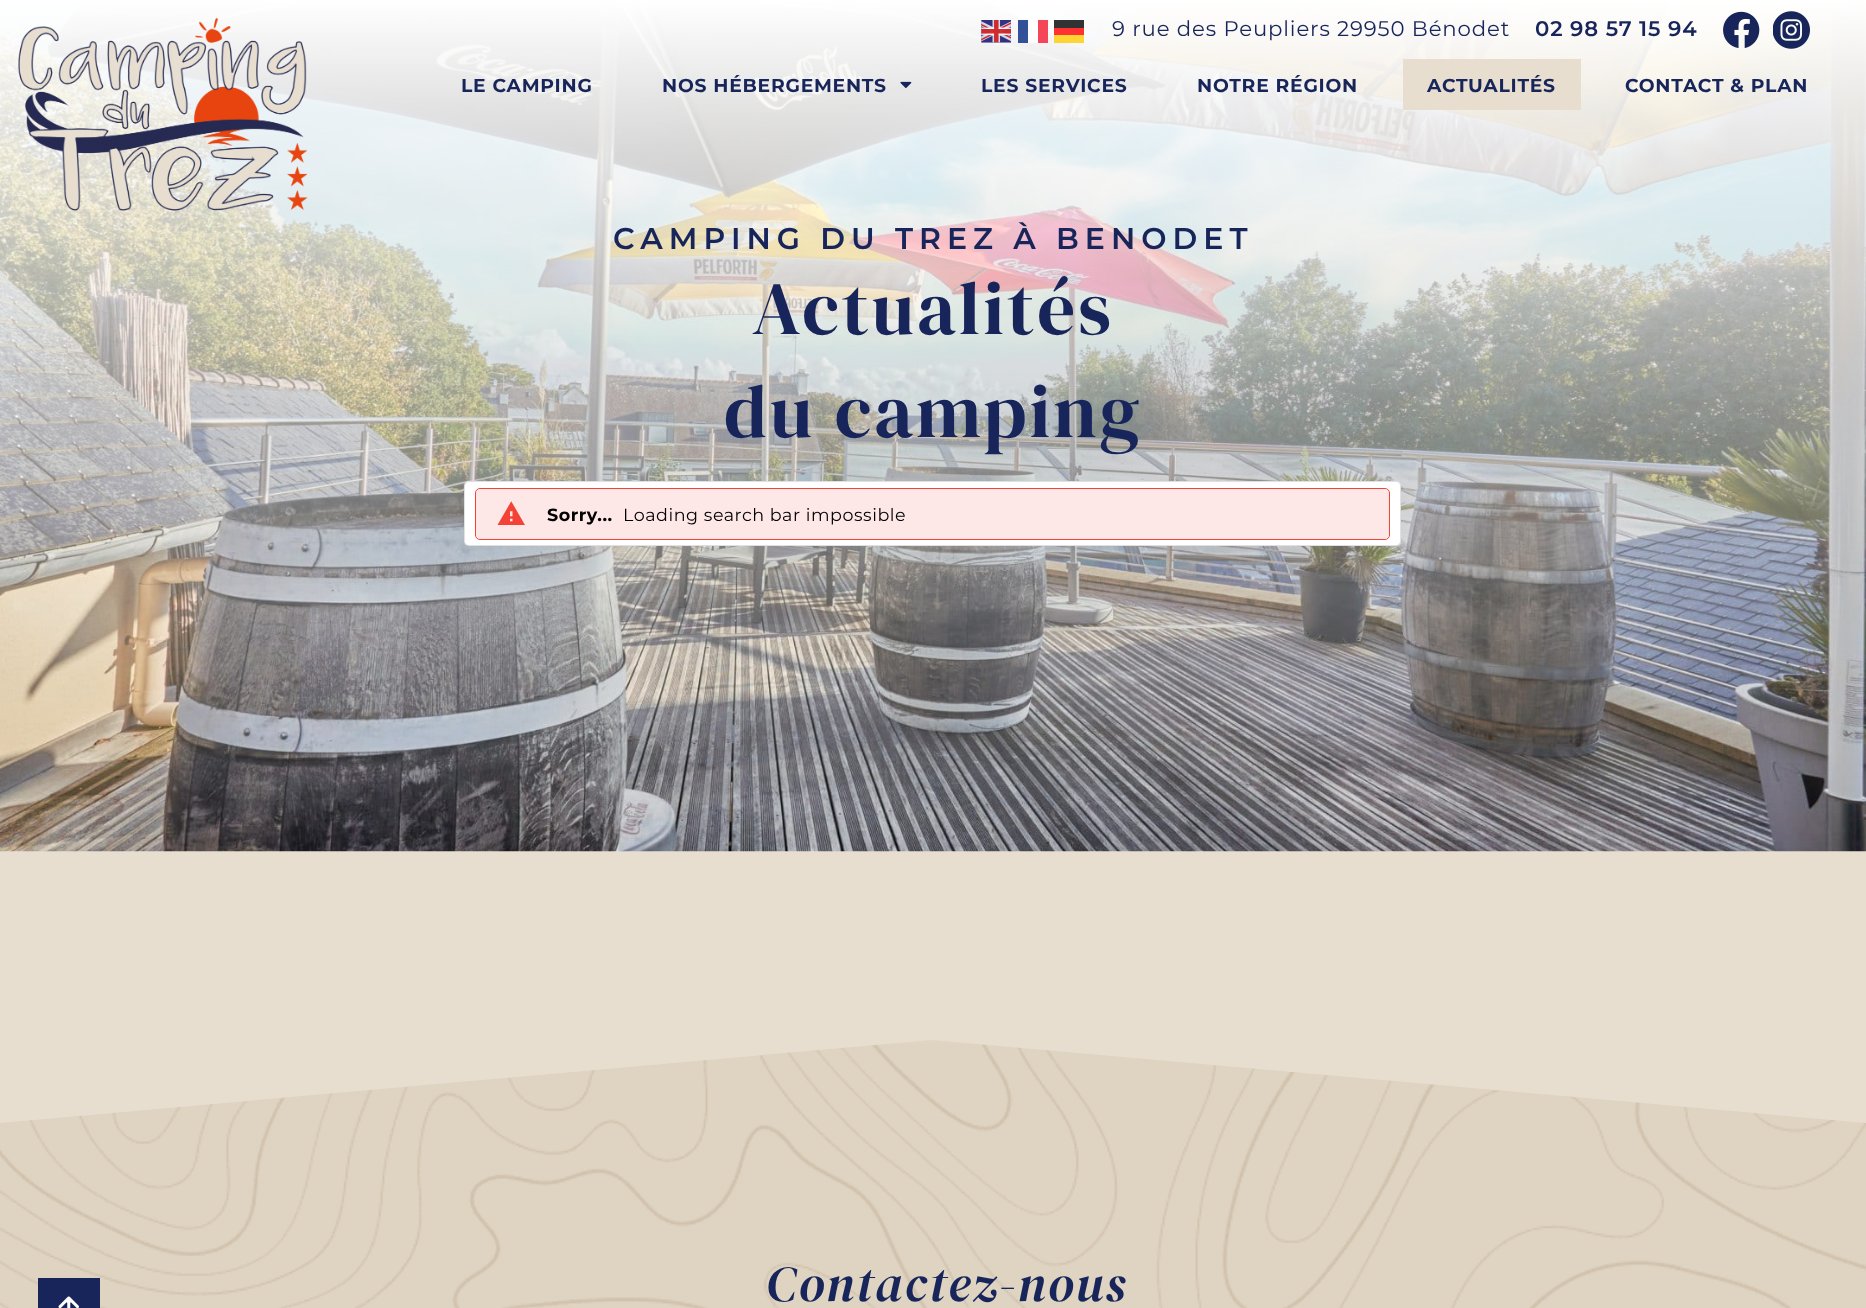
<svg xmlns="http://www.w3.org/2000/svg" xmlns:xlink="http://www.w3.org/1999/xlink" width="1866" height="1308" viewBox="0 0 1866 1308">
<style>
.cls-1{font:21.25px Montserrat;letter-spacing:0.85px;fill:#17255a}
.cls-2{font:600 21.25px Montserrat;letter-spacing:0.85px;fill:#17255a}
.cls-3{font:bold 18.75px Montserrat;letter-spacing:0.75px;fill:#17255a}
.cls-4{font:600 30px Montserrat;letter-spacing:6px;fill:#17255a}
.cls-5{font:75px DM Serif Display;letter-spacing:3px;fill:#17255a}
.cls-6{font:bold 17.5px Montserrat;letter-spacing:0.55px;fill:#000000}
.cls-7{font:17.5px Montserrat;letter-spacing:0.55px;fill:#000000}
.cls-8{font:italic 50px DM Serif Display;letter-spacing:2px;fill:#17255a}
</style>
<rect width="100%" height="100%" fill="#e7ded0"/>
<rect fill="#e0d5c3" x="0" y="1040" width="1866" height="268"/>
<image xlink:href="image5.png" x="0" y="0" width="1866" height="852"/>
<image xlink:href="image0.png" x="18" y="17" width="290" height="194"/>
<image xlink:href="image1.png" x="981" y="20" width="30" height="23"/>
<rect fill="#335198" x="1018" y="20" width="10" height="23"/>
<rect fill="#ffffff" fill-opacity="0.8" x="1028" y="22" width="10" height="21"/>
<rect fill="#f54659" x="1038" y="20" width="10" height="23"/>
<rect fill="#000000" fill-opacity="0.8" x="1054" y="20" width="30" height="8"/>
<rect fill="#fe3232" x="1054" y="28" width="30" height="7"/>
<rect fill="#ffcc00" fill-opacity="0.8" x="1054" y="35" width="30" height="8"/>
<image xlink:href="image2.png" x="1723" y="11" width="37" height="38"/>
<image xlink:href="image3.png" x="1773" y="11" width="37" height="38"/>
<image xlink:href="image4.png" x="900" y="81" width="12" height="7"/>
<rect fill="#e7ded0" x="1403" y="59" width="178" height="51"/>
<rect fill="#ffffff" x="464" y="481" width="937" height="65" rx="5"/>
<rect fill="none" stroke="#000000" stroke-opacity="0.12" x="464.5" y="481.5" width="936" height="64" rx="4.5"/>
<rect fill="none" stroke="#f44336" x="475.5" y="488.5" width="914" height="51" rx="4.5"/>
<rect fill="#f44336" fill-opacity="0.12" x="476" y="489" width="913" height="50" rx="5"/>
<image xlink:href="image6.png" x="497" y="501" width="28" height="24"/>
<image xlink:href="image8.png" x="0" y="1044" width="1866" height="264"/>
<rect fill="#17255a" x="38" y="1278" width="62" height="30"/>
<image xlink:href="image7.png" x="58" y="1296" width="21" height="12"/>
<path fill="#e7ded0" d="M932 1040L1866 1123V1036H-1V1123Z"/>
<text class="cls-1" x="1112" y="36">9 rue des Peupliers 29950 Bénodet</text>
<text class="cls-2" x="1535" y="36">02 98 57 15 94</text>
<text class="cls-3" x="461" y="92">LE CAMPING</text>
<text class="cls-3" x="662" y="92">NOS HÉBERGEMENTS</text>
<text class="cls-3" x="981" y="92">LES SERVICES</text>
<text class="cls-3" x="1197" y="92">NOTRE RÉGION</text>
<text class="cls-3" x="1427" y="92">ACTUALITÉS</text>
<text class="cls-3" x="1625" y="92">CONTACT &amp; PLAN</text>
<text class="cls-4" x="613" y="249">CAMPING DU TREZ À BENODET</text>
<text class="cls-5" x="752" y="334">Actualités</text>
<text class="cls-5" x="724" y="437">du camping</text>
<text class="cls-6" x="547" y="521">Sorry...</text>
<text class="cls-7" x="623" y="521">Loading search bar impossible</text>
<text class="cls-8" x="766" y="1301">Contactez-nous</text>
</svg>
